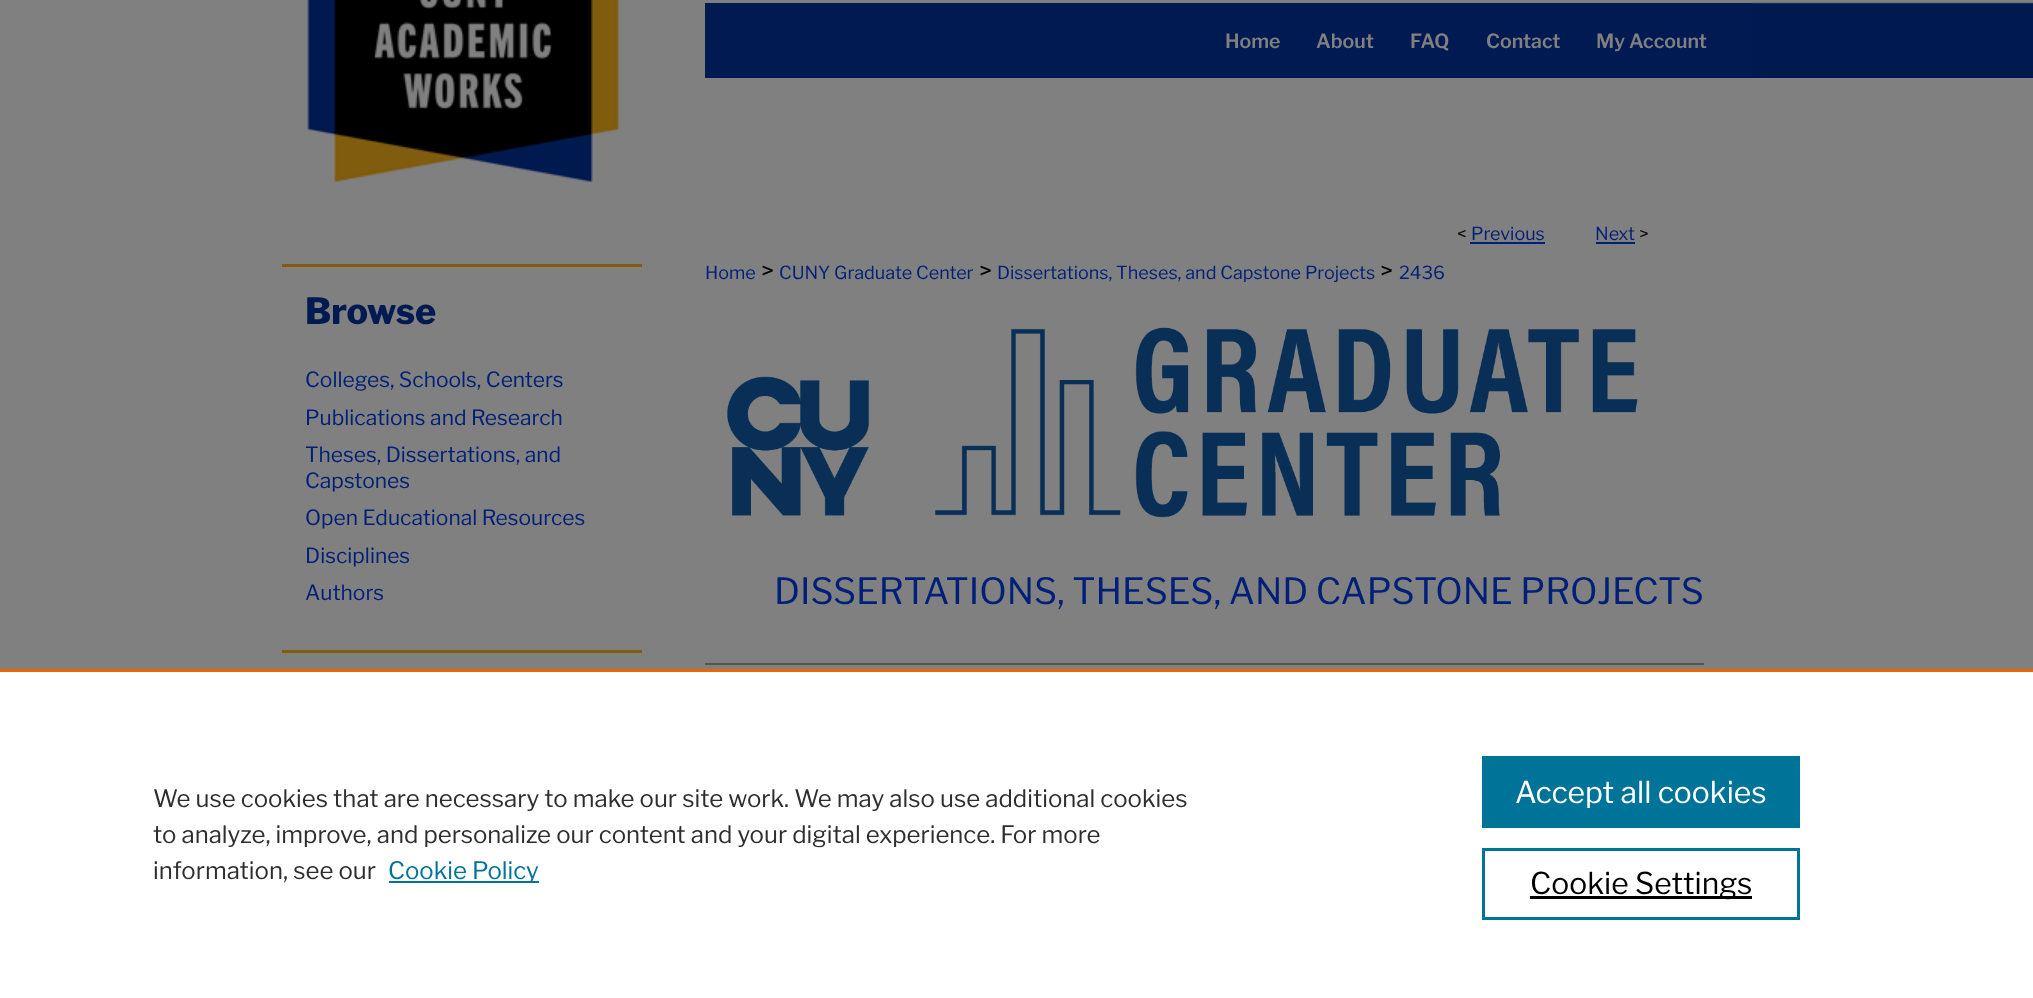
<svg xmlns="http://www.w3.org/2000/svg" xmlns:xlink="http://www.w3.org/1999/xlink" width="2033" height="998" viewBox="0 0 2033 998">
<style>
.cls-1{font:600 19.5px Libre Franklin;fill:#808080}
.cls-2{font:800 36px Libre Franklin;fill:#011a51}
.cls-3{font:21px Libre Franklin;fill:#002078}
.cls-4{font:18px Libre Franklin;fill:#111111}
.cls-5{font:18px Libre Franklin;fill:#002078}
.cls-6{font:24px Libre Franklin;fill:#000000}
.cls-7{font:36px Libre Franklin;fill:#002078}
.cls-8{font:24px Libre Franklin;fill:#2e2e2e}
.cls-9{font:24px Libre Franklin;fill:#007398}
.cls-10{font:30px Libre Franklin;fill:#ffffff}
.cls-11{font:30px Libre Franklin;fill:#000000}
</style>
<rect width="100%" height="100%" fill="#808080"/>
<image xlink:href="image0.png" x="1752" y="2" width="281" height="76"/>
<image xlink:href="image1.png" x="307" y="0" width="313" height="183"/>
<rect fill="#011a51" x="705" y="3" width="1047" height="75"/>
<rect fill="#805c0e" x="282" y="264" width="360" height="3"/>
<rect fill="#805c0e" x="282" y="650" width="360" height="3"/>
<rect fill="#002078" x="1470" y="242" width="75" height="2"/>
<rect fill="#002078" x="1596" y="242" width="39" height="2"/>
<image xlink:href="image2.png" x="727" y="327" width="911" height="191"/>
<rect fill="#555555" x="705" y="663" width="999" height="2"/>
<rect fill="#ffffff" x="0" y="672" width="2033" height="326"/>
<rect fill="#eb6500" x="0" y="669" width="2033" height="3"/>
<rect fill="#007398" x="389" y="881" width="150" height="2"/>
<rect fill="#007398" x="1482" y="756" width="318" height="72"/>
<rect fill="none" stroke="#007398" stroke-width="3" x="1483.5" y="849.5" width="315" height="69"/>
<rect fill="#000000" x="1530" y="896" width="222" height="3"/>
<text class="cls-1" x="1225" y="48">Home</text>
<text class="cls-1" x="1316" y="48">About</text>
<text class="cls-1" x="1410" y="48">FAQ</text>
<text class="cls-1" x="1486" y="48">Contact</text>
<text class="cls-1" x="1596" y="48">My Account</text>
<text class="cls-2" x="305" y="324">Browse</text>
<text class="cls-3"><tspan x="305" y="387">Colleges, Schools, Centers</tspan><tspan x="305" y="425">Publications and Research</tspan><tspan x="305" y="462">Theses, Dissertations, and</tspan><tspan x="305" y="488">Capstones</tspan><tspan x="305" y="525">Open Educational Resources</tspan><tspan x="305" y="563">Disciplines</tspan><tspan x="305" y="600">Authors</tspan></text>
<text class="cls-4" x="1457" y="240">&lt;</text>
<text class="cls-5" x="1471" y="240">Previous</text>
<text class="cls-5" x="1595" y="240">Next</text>
<text class="cls-4" x="1639" y="240">&gt;</text>
<text class="cls-5" x="705" y="279">Home</text>
<text class="cls-6" x="761" y="279">&gt;</text>
<text class="cls-5" x="779" y="279">CUNY Graduate Center</text>
<text class="cls-6" x="979" y="279">&gt;</text>
<text class="cls-5" x="997" y="279">Dissertations, Theses, and Capstone Projects</text>
<text class="cls-6" x="1380" y="279">&gt;</text>
<text class="cls-5" x="1399" y="279">2436</text>
<text class="cls-7" x="774" y="604">DISSERTATIONS, THESES, AND CAPSTONE PROJECTS</text>
<text class="cls-8"><tspan x="153" y="807">We use cookies that are necessary to make our site work. We may also use additional cookies</tspan><tspan x="153" y="843">to analyze, improve, and personalize our content and your digital experience. For more</tspan><tspan x="153" y="879">information, see our</tspan></text>
<text class="cls-9" x="388" y="879">Cookie Policy</text>
<text class="cls-10" x="1515" y="803">Accept all cookies</text>
<text class="cls-11" x="1530" y="894">Cookie Settings</text>
</svg>
